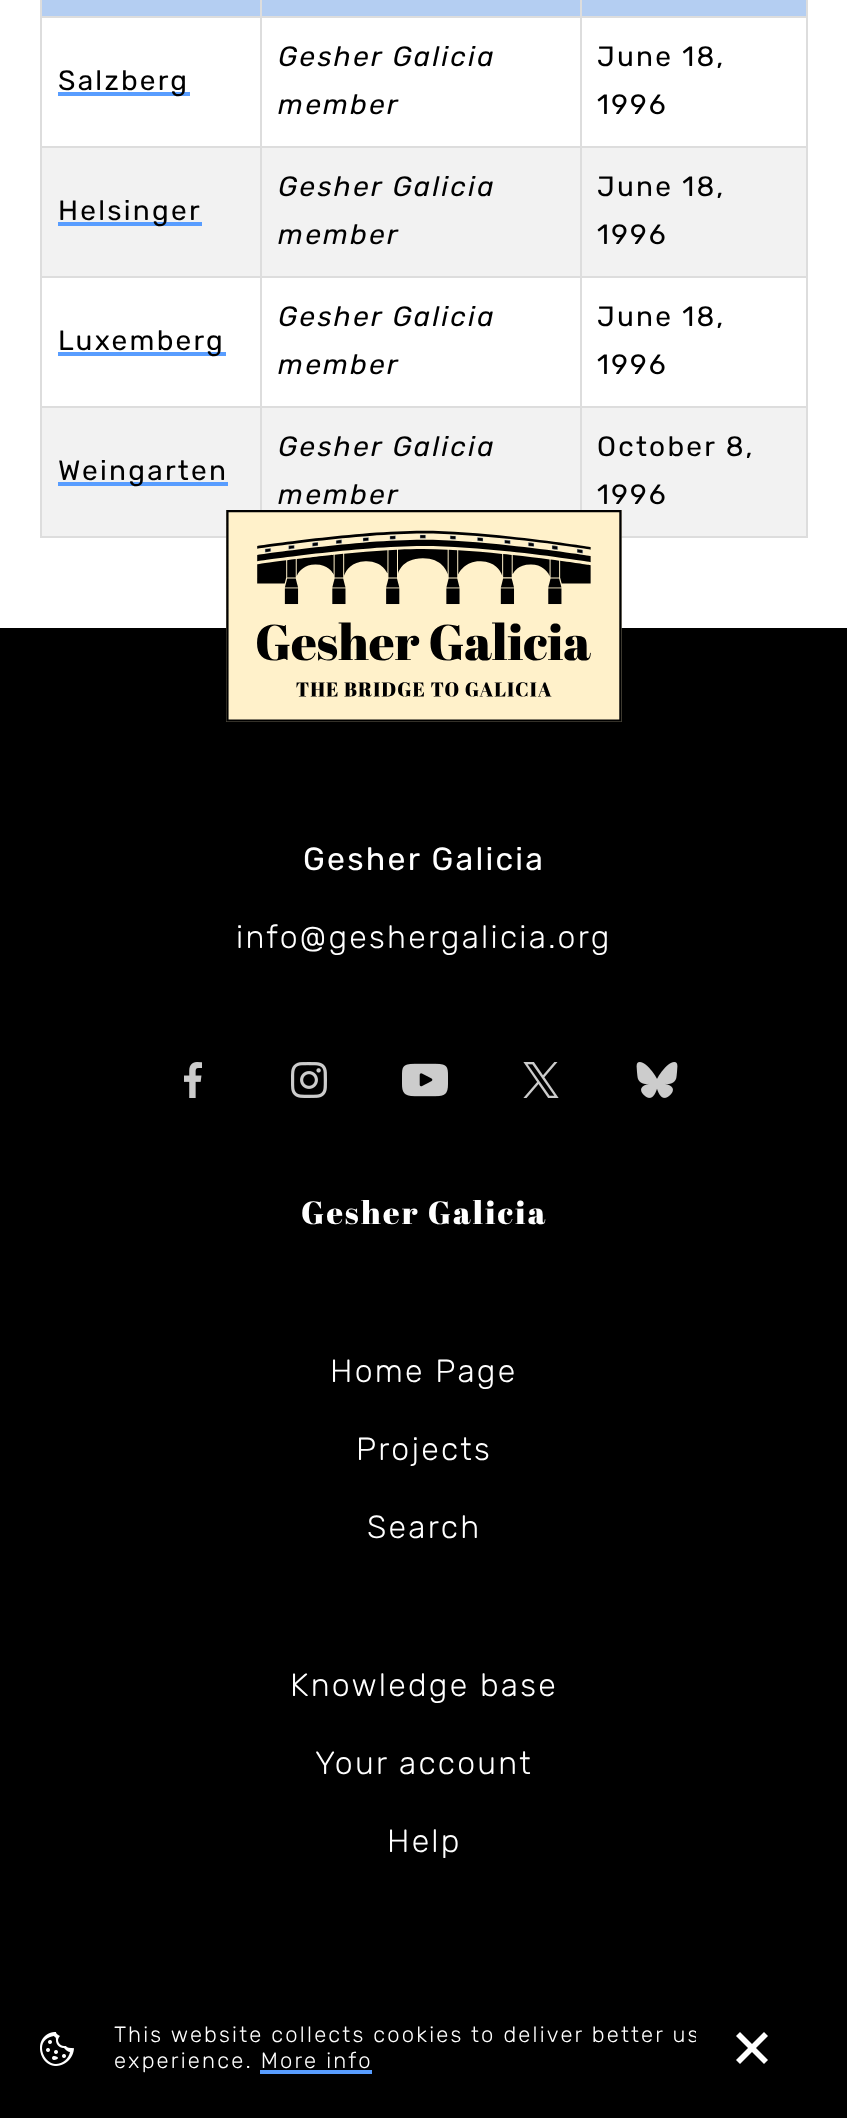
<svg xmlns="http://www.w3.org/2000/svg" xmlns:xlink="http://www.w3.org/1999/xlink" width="847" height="2118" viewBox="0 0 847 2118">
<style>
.cls-1{font:28px Rubik;letter-spacing:2.25px;fill:#000000}
.cls-2{font:italic 28px Rubik;letter-spacing:2.25px;fill:#000000}
.cls-3{font:32px Rubik;letter-spacing:2.25px;fill:#ffffff}
.cls-4{font:300 32px Rubik;letter-spacing:2.25px;fill:#ffffff}
.cls-5{font:32px Abril Fatface;letter-spacing:2.25px;fill:#ffffff}
.cls-6{font:300 22px Rubik;letter-spacing:2.2px;fill:#ffffff}
</style>
<rect width="100%" height="100%" fill="#ffffff"/>
<rect fill="#b4cef2" x="42" y="0" width="218" height="16"/>
<rect fill="#b4cef2" x="262" y="0" width="318" height="16"/>
<rect fill="#dddddd" x="580" y="16" width="228" height="2"/>
<rect fill="#dddddd" x="580" y="146" width="228" height="2"/>
<rect fill="#f2f2f2" x="42" y="148" width="764" height="128"/>
<rect fill="#dddddd" x="580" y="276" width="228" height="2"/>
<rect fill="#dddddd" x="580" y="406" width="228" height="2"/>
<rect fill="#f2f2f2" x="42" y="408" width="764" height="128"/>
<rect fill="#dddddd" x="580" y="406" width="2" height="104"/>
<rect fill="#dddddd" x="260" y="406" width="322" height="2"/>
<rect fill="#dddddd" x="580" y="276" width="2" height="132"/>
<rect fill="#dddddd" x="260" y="276" width="322" height="2"/>
<rect fill="#dddddd" x="580" y="146" width="2" height="132"/>
<rect fill="#dddddd" x="260" y="146" width="322" height="2"/>
<rect fill="#dddddd" x="580" y="16" width="2" height="132"/>
<rect fill="#dddddd" x="260" y="16" width="322" height="2"/>
<rect fill="#dddddd" x="260" y="406" width="2" height="104"/>
<rect fill="#dddddd" x="40" y="406" width="222" height="2"/>
<rect fill="#dddddd" x="260" y="276" width="2" height="132"/>
<rect fill="#dddddd" x="40" y="276" width="222" height="2"/>
<rect fill="#dddddd" x="260" y="146" width="2" height="132"/>
<rect fill="#dddddd" x="40" y="146" width="222" height="2"/>
<rect fill="#dddddd" x="260" y="16" width="2" height="132"/>
<rect fill="#dddddd" x="40" y="16" width="222" height="2"/>
<rect fill="#dddddd" x="260" y="0" width="2" height="18"/>
<rect fill="#b4cef2" x="582" y="0" width="224" height="16"/>
<rect fill="#dddddd" x="580" y="0" width="2" height="18"/>
<rect fill="#dddddd" x="40" y="536" width="187" height="2"/>
<rect fill="#dddddd" x="40" y="406" width="2" height="132"/>
<rect fill="#dddddd" x="40" y="276" width="2" height="132"/>
<rect fill="#dddddd" x="40" y="146" width="2" height="132"/>
<rect fill="#dddddd" x="40" y="0" width="2" height="148"/>
<rect fill="#589dff" x="58" y="92" width="132" height="4"/>
<rect fill="#dddddd" x="806" y="406" width="2" height="132"/>
<rect fill="#dddddd" x="806" y="276" width="2" height="132"/>
<rect fill="#dddddd" x="806" y="146" width="2" height="132"/>
<rect fill="#dddddd" x="806" y="0" width="2" height="148"/>
<rect fill="#589dff" x="58" y="222" width="144" height="4"/>
<rect fill="#589dff" x="58" y="352" width="168" height="4"/>
<rect fill="#589dff" x="58" y="482" width="170" height="4"/>
<rect fill="#dddddd" x="621" y="536" width="187" height="2"/>
<rect fill="#000000" x="0" y="628" width="847" height="1490"/>
<image xlink:href="image0.png" x="226" y="510" width="396" height="212"/>
<image xlink:href="image1.png" x="184" y="1062" width="18" height="36"/>
<image xlink:href="image2.png" x="291" y="1062" width="36" height="36"/>
<image xlink:href="image3.png" x="402" y="1063" width="46" height="34"/>
<image xlink:href="image4.png" x="523" y="1062" width="36" height="36"/>
<image xlink:href="image5.png" x="636" y="1062" width="42" height="36"/>
<image xlink:href="image6.png" x="40" y="2032" width="34" height="34"/>
<path fill="#ffffff" d="M764 2064L736 2036L740 2032L768 2060Z"/>
<path fill="#ffffff" d="M740 2064L736 2060L764 2032L768 2036Z"/>
<text class="cls-1" x="58" y="90">Salzberg</text>
<text class="cls-2"><tspan x="278" y="66">Gesher Galicia</tspan><tspan x="278" y="114">member</tspan></text>
<text class="cls-1"><tspan x="597" y="66">June 18,</tspan><tspan x="597" y="114">1996</tspan></text>
<text class="cls-1" x="58" y="220">Helsinger</text>
<text class="cls-2"><tspan x="278" y="196">Gesher Galicia</tspan><tspan x="278" y="244">member</tspan></text>
<text class="cls-1"><tspan x="597" y="196">June 18,</tspan><tspan x="597" y="244">1996</tspan></text>
<text class="cls-1" x="58" y="350">Luxemberg</text>
<text class="cls-2"><tspan x="278" y="326">Gesher Galicia</tspan><tspan x="278" y="374">member</tspan></text>
<text class="cls-1"><tspan x="597" y="326">June 18,</tspan><tspan x="597" y="374">1996</tspan></text>
<text class="cls-1" x="58" y="480">Weingarten</text>
<text class="cls-2"><tspan x="278" y="456">Gesher Galicia</tspan><tspan x="278" y="504">member</tspan></text>
<text class="cls-1"><tspan x="597" y="456">October 8,</tspan><tspan x="597" y="504">1996</tspan></text>
<text class="cls-3" x="303" y="870">Gesher Galicia</text>
<text class="cls-4" x="236" y="948">info@geshergalicia.org</text>
<text class="cls-5" x="301" y="1224">Gesher Galicia</text>
<text class="cls-4" x="330" y="1382">Home Page</text>
<text class="cls-4" x="356" y="1460">Projects</text>
<text class="cls-4" x="367" y="1538">Search</text>
<text class="cls-4" x="290" y="1696">Knowledge base</text>
<text class="cls-4" x="315" y="1774">Your account</text>
<text class="cls-4" x="387" y="1852">Help</text>
<text class="cls-6"><tspan x="114" y="2042">This website collects cookies to deliver better us</tspan><tspan x="114" y="2068">experience. More info</tspan></text>
<rect fill="#589dff" x="260" y="2070" width="112" height="4"/>
<rect fill="#000000" x="696" y="2031" width="2" height="11"/>
</svg>
